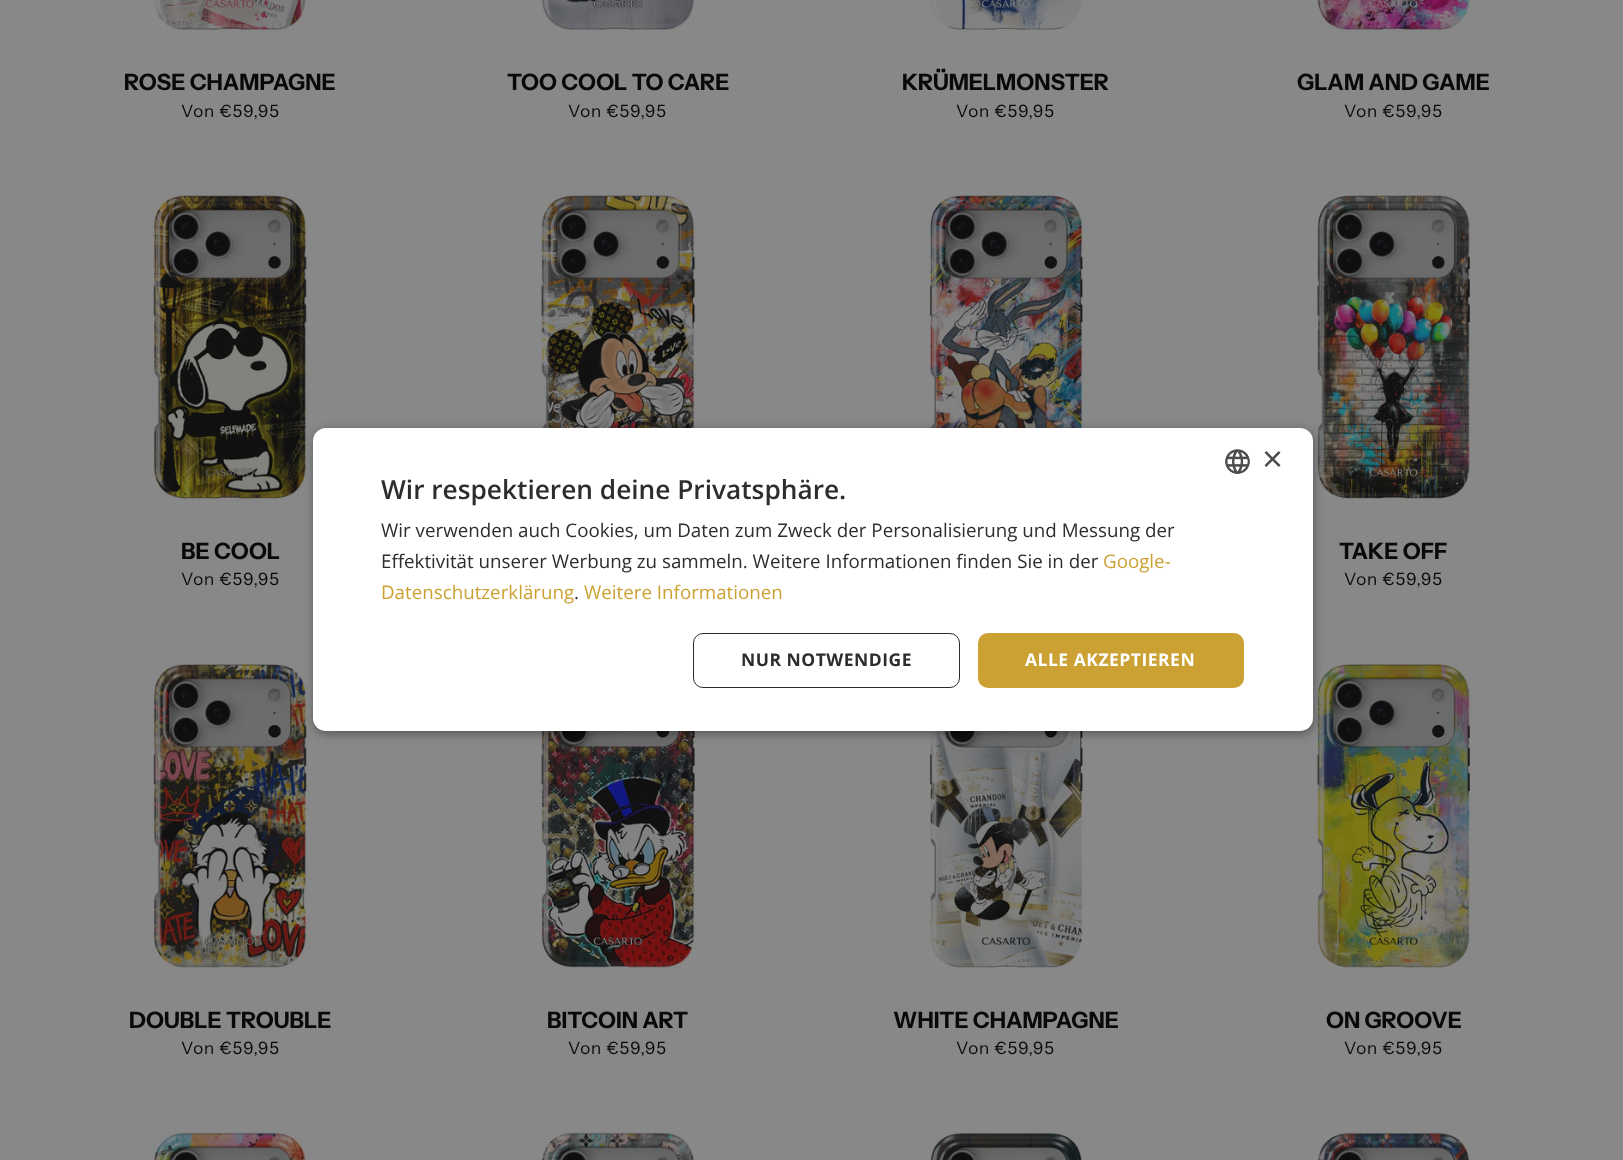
<svg xmlns="http://www.w3.org/2000/svg" xmlns:xlink="http://www.w3.org/1999/xlink" width="1623" height="1160" viewBox="0 0 1623 1160">
<style>
.cls-1{font:bold 22.5px Instrument Sans;fill:#090909}
.cls-2{font:17px Instrument Sans;letter-spacing:1px;fill:#090909}
.cls-3{font:36px Liberation Sans;fill:#4d4d4d}
.cls-4{font:600 26.25px Open Sans;fill:#2d2d2d}
.cls-5{font:18.75px Open Sans;fill:#2d2d2d}
.cls-6{font:18.75px Open Sans;fill:#cca133}
.cls-7{font:bold 17.5px Open Sans;letter-spacing:0.5px;fill:#2d2d2d}
.cls-8{font:bold 17.5px Open Sans;letter-spacing:0.5px;fill:#ffffff}
</style>
<rect width="100%" height="100%" fill="#888888"/>
<image xlink:href="image0.png" x="154" y="0" width="152" height="34"/>
<image xlink:href="image1.png" x="541" y="0" width="153" height="31"/>
<image xlink:href="image2.png" x="930" y="0" width="152" height="32"/>
<image xlink:href="image3.png" x="1317" y="0" width="157" height="34"/>
<image xlink:href="image4.png" x="540" y="194" width="159" height="234"/>
<image xlink:href="image5.png" x="929" y="194" width="158" height="234"/>
<image xlink:href="image6.png" x="152" y="194" width="159" height="309"/>
<image xlink:href="image7.png" x="1316" y="194" width="158" height="309"/>
<image xlink:href="image8.png" x="152" y="663" width="159" height="308"/>
<image xlink:href="image9.png" x="541" y="731" width="158" height="239"/>
<image xlink:href="image10.png" x="929" y="731" width="157" height="237"/>
<image xlink:href="image11.png" x="1316" y="663" width="158" height="309"/>
<image xlink:href="image12.png" x="153" y="1132" width="153" height="28"/>
<image xlink:href="image13.png" x="542" y="1132" width="153" height="28"/>
<image xlink:href="image14.png" x="929" y="1132" width="154" height="28"/>
<image xlink:href="image15.png" x="1317" y="1131" width="154" height="29"/>
<rect fill="#000000" fill-opacity="0.35" filter="blur(5px)" x="314" y="430" width="1000" height="304" rx="13"/>
<rect fill="#ffffff" x="313" y="428" width="1000" height="303" rx="13"/>
<image xlink:href="image16.png" x="1225" y="449" width="25" height="25"/>
<rect fill="none" stroke="#2d2d2d" x="693.5" y="633.5" width="266" height="54" rx="9.5"/>
<rect fill="#cca133" x="978" y="633" width="266" height="55" rx="10"/>
<text class="cls-1" x="124" y="90">ROSE CHAMPAGNE</text>
<text class="cls-2" x="181" y="117">Von €59,95</text>
<text class="cls-1" x="507" y="90">TOO COOL TO CARE</text>
<text class="cls-2" x="568" y="117">Von €59,95</text>
<text class="cls-1" x="902" y="90">KRÜMELMONSTER</text>
<text class="cls-2" x="956" y="117">Von €59,95</text>
<text class="cls-1" x="1297" y="90">GLAM AND GAME</text>
<text class="cls-2" x="1344" y="117">Von €59,95</text>
<text class="cls-1" x="181" y="559">BE COOL</text>
<text class="cls-2" x="181" y="585">Von €59,95</text>
<text class="cls-1" x="1339" y="559">TAKE OFF</text>
<text class="cls-2" x="1344" y="585">Von €59,95</text>
<text class="cls-1" x="129" y="1028">DOUBLE TROUBLE</text>
<text class="cls-2" x="181" y="1054">Von €59,95</text>
<text class="cls-1" x="547" y="1028">BITCOIN ART</text>
<text class="cls-2" x="568" y="1054">Von €59,95</text>
<text class="cls-1" x="893" y="1028">WHITE CHAMPAGNE</text>
<text class="cls-2" x="956" y="1054">Von €59,95</text>
<text class="cls-1" x="1326" y="1028">ON GROOVE</text>
<text class="cls-2" x="1344" y="1054">Von €59,95</text>
<text class="cls-3" x="1262" y="471">×</text>
<text class="cls-4" x="381" y="499">Wir respektieren deine Privatsphäre.</text>
<text class="cls-5"><tspan x="381" y="537">Wir verwenden auch Cookies, um Daten zum Zweck der Personalisierung und Messung der</tspan><tspan x="381" y="568">Effektivität unserer Werbung zu sammeln. Weitere Informationen finden Sie in der</tspan></text>
<text class="cls-6" x="1103" y="568">Google-</text>
<text class="cls-6" x="381" y="599">Datenschutzerklärung</text>
<text class="cls-5" x="574" y="599">.</text>
<text class="cls-6" x="584" y="599">Weitere Informationen</text>
<text class="cls-7" x="741" y="666">NUR NOTWENDIGE</text>
<text class="cls-8" x="1025" y="666">ALLE AKZEPTIEREN</text>
</svg>
